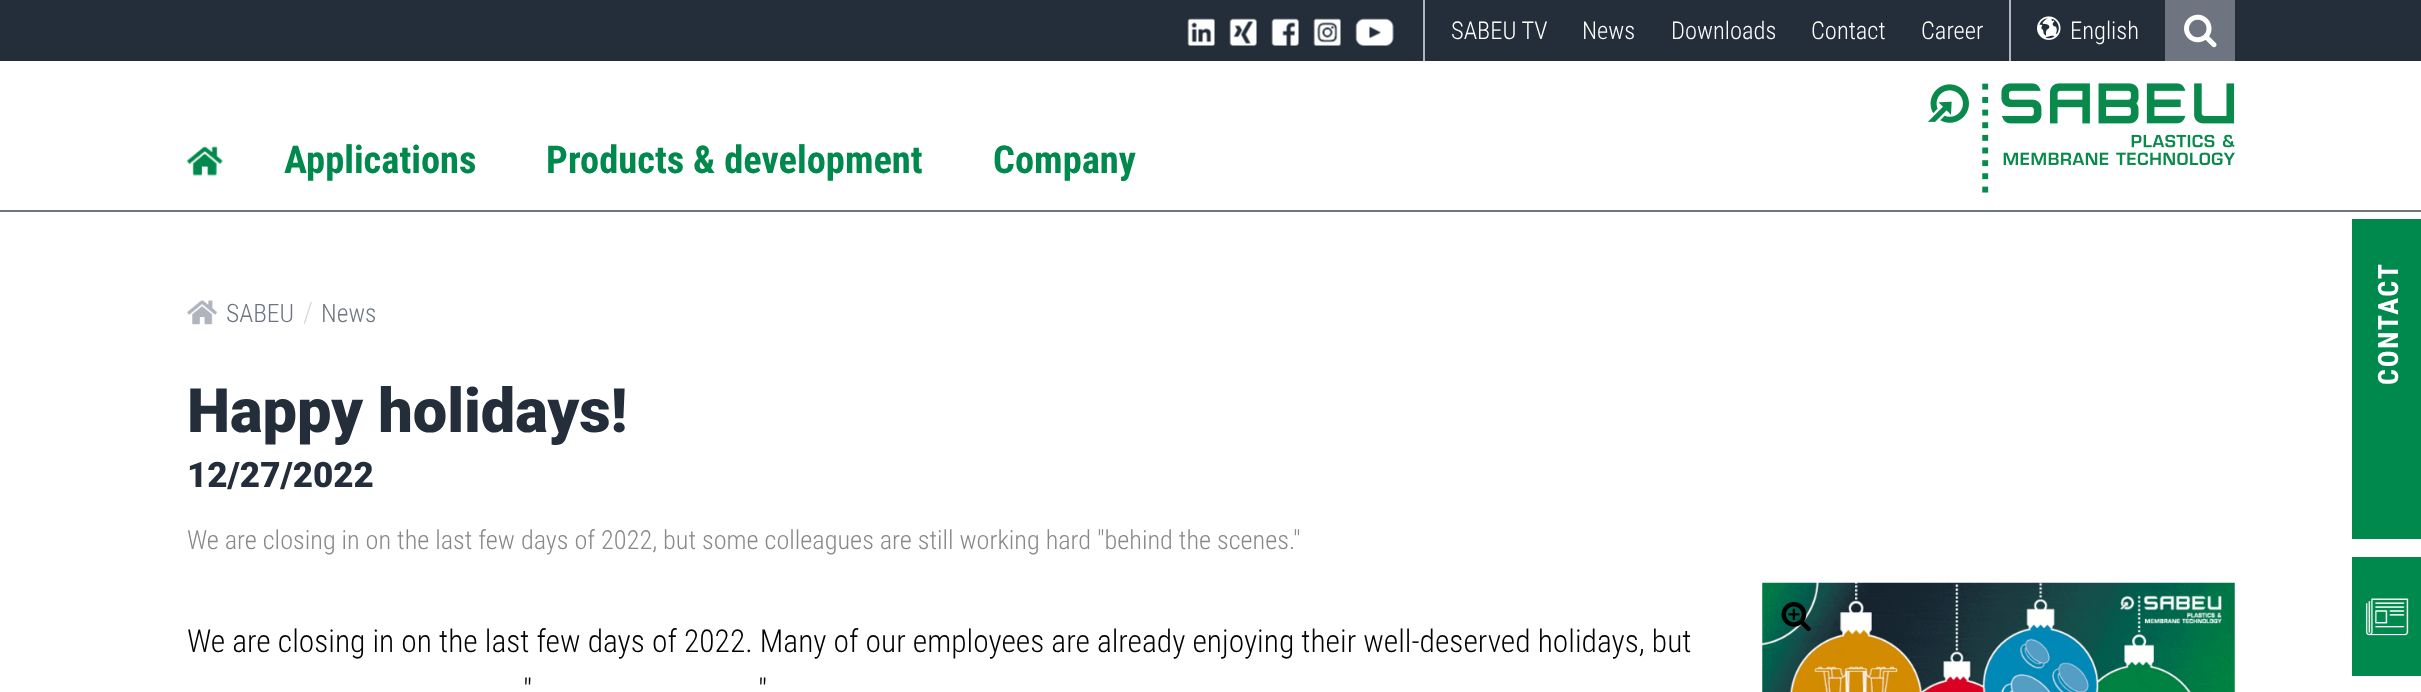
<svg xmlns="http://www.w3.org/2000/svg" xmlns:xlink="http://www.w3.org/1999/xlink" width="2421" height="692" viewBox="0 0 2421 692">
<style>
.cls-1{font:300 24.5px Roboto Condensed;fill:#ffffff}
.cls-2{font:bold 38.5px Roboto Condensed;fill:#00894d}
.cls-3{font:300 25.5px Roboto Condensed;fill:#6e7581}
.cls-4{font:300 28px Roboto Condensed;fill:#d6d8dd}
.cls-5{font:900 61.25px Roboto;fill:#232e3a}
.cls-6{font:900 35px Roboto;fill:#232e3a}
.cls-7{font:300 26.25px Roboto Condensed;fill:#888888}
.cls-8{font:300 31.5px Roboto Condensed;fill:#000000}
.cls-9{font:bold 28px Roboto Condensed;letter-spacing:1.75px;fill:#ffffff}
</style>
<rect width="100%" height="100%" fill="#ffffff"/>
<rect fill="#232e3a" x="0" y="0" width="2421" height="61"/>
<rect fill="#b0b4bc" x="1423" y="0" width="2" height="61"/>
<image xlink:href="image0.png" x="1187" y="18" width="28" height="28"/>
<image xlink:href="image1.png" x="1229" y="18" width="28" height="28"/>
<image xlink:href="image2.png" x="1271" y="18" width="28" height="28"/>
<image xlink:href="image3.png" x="1313" y="18" width="28" height="28"/>
<image xlink:href="image4.png" x="1355" y="18" width="39" height="28"/>
<rect fill="#b0b4bc" x="2009" y="0" width="2" height="61"/>
<image xlink:href="image5.png" x="2037" y="16" width="24" height="24"/>
<rect fill="#6e7581" x="2165" y="0" width="70" height="61"/>
<image xlink:href="image6.png" x="2184" y="14" width="33" height="34"/>
<rect fill="#6e7581" x="0" y="210" width="2421" height="2"/>
<image xlink:href="image7.png" x="187" y="146" width="36" height="31"/>
<image xlink:href="image8.png" x="1928" y="83" width="307" height="110"/>
<image xlink:href="image9.png" x="187" y="300" width="30" height="25"/>
<image xlink:href="image10.png" x="1762" y="582" width="473" height="110"/>
<image xlink:href="image11.png" x="1781" y="602" width="30" height="30"/>
<rect fill="#00894d" x="2352" y="219" width="69" height="320"/>
<rect fill="#00894d" x="2352" y="557" width="69" height="119"/>
<image xlink:href="image12.png" x="2365" y="598" width="44" height="38"/>
<text class="cls-1" x="1451" y="39">SABEU TV</text>
<text class="cls-1" x="1582" y="39">News</text>
<text class="cls-1" x="1671" y="39">Downloads</text>
<text class="cls-1" x="1811" y="39">Contact</text>
<text class="cls-1" x="1921" y="39">Career</text>
<text class="cls-1" x="2070" y="39">English</text>
<text class="cls-2" x="284" y="173">Applications</text>
<text class="cls-2" x="546" y="173">Products &amp; development</text>
<text class="cls-2" x="993" y="173">Company</text>
<text class="cls-3" x="226" y="322">SABEU</text>
<text class="cls-4" x="303" y="322">/</text>
<text class="cls-3" x="321" y="322">News</text>
<text class="cls-5" x="187" y="432">Happy holidays!</text>
<text class="cls-6" x="187" y="487">12/27/2022</text>
<text class="cls-7" x="187" y="549">We are closing in on the last few days of 2022, but some colleagues are still working hard "behind the scenes."</text>
<text class="cls-8" x="187" y="652">We are closing in on the last few days of 2022. Many of our employees are already enjoying their well-deserved holidays, but</text>
<text class="cls-8" x="523" y="701">"</text>
<text class="cls-8" x="758" y="701">"</text>
<text class="cls-9" x="2398" y="385" transform="rotate(-90 2398 385)">CONTACT</text>
</svg>
